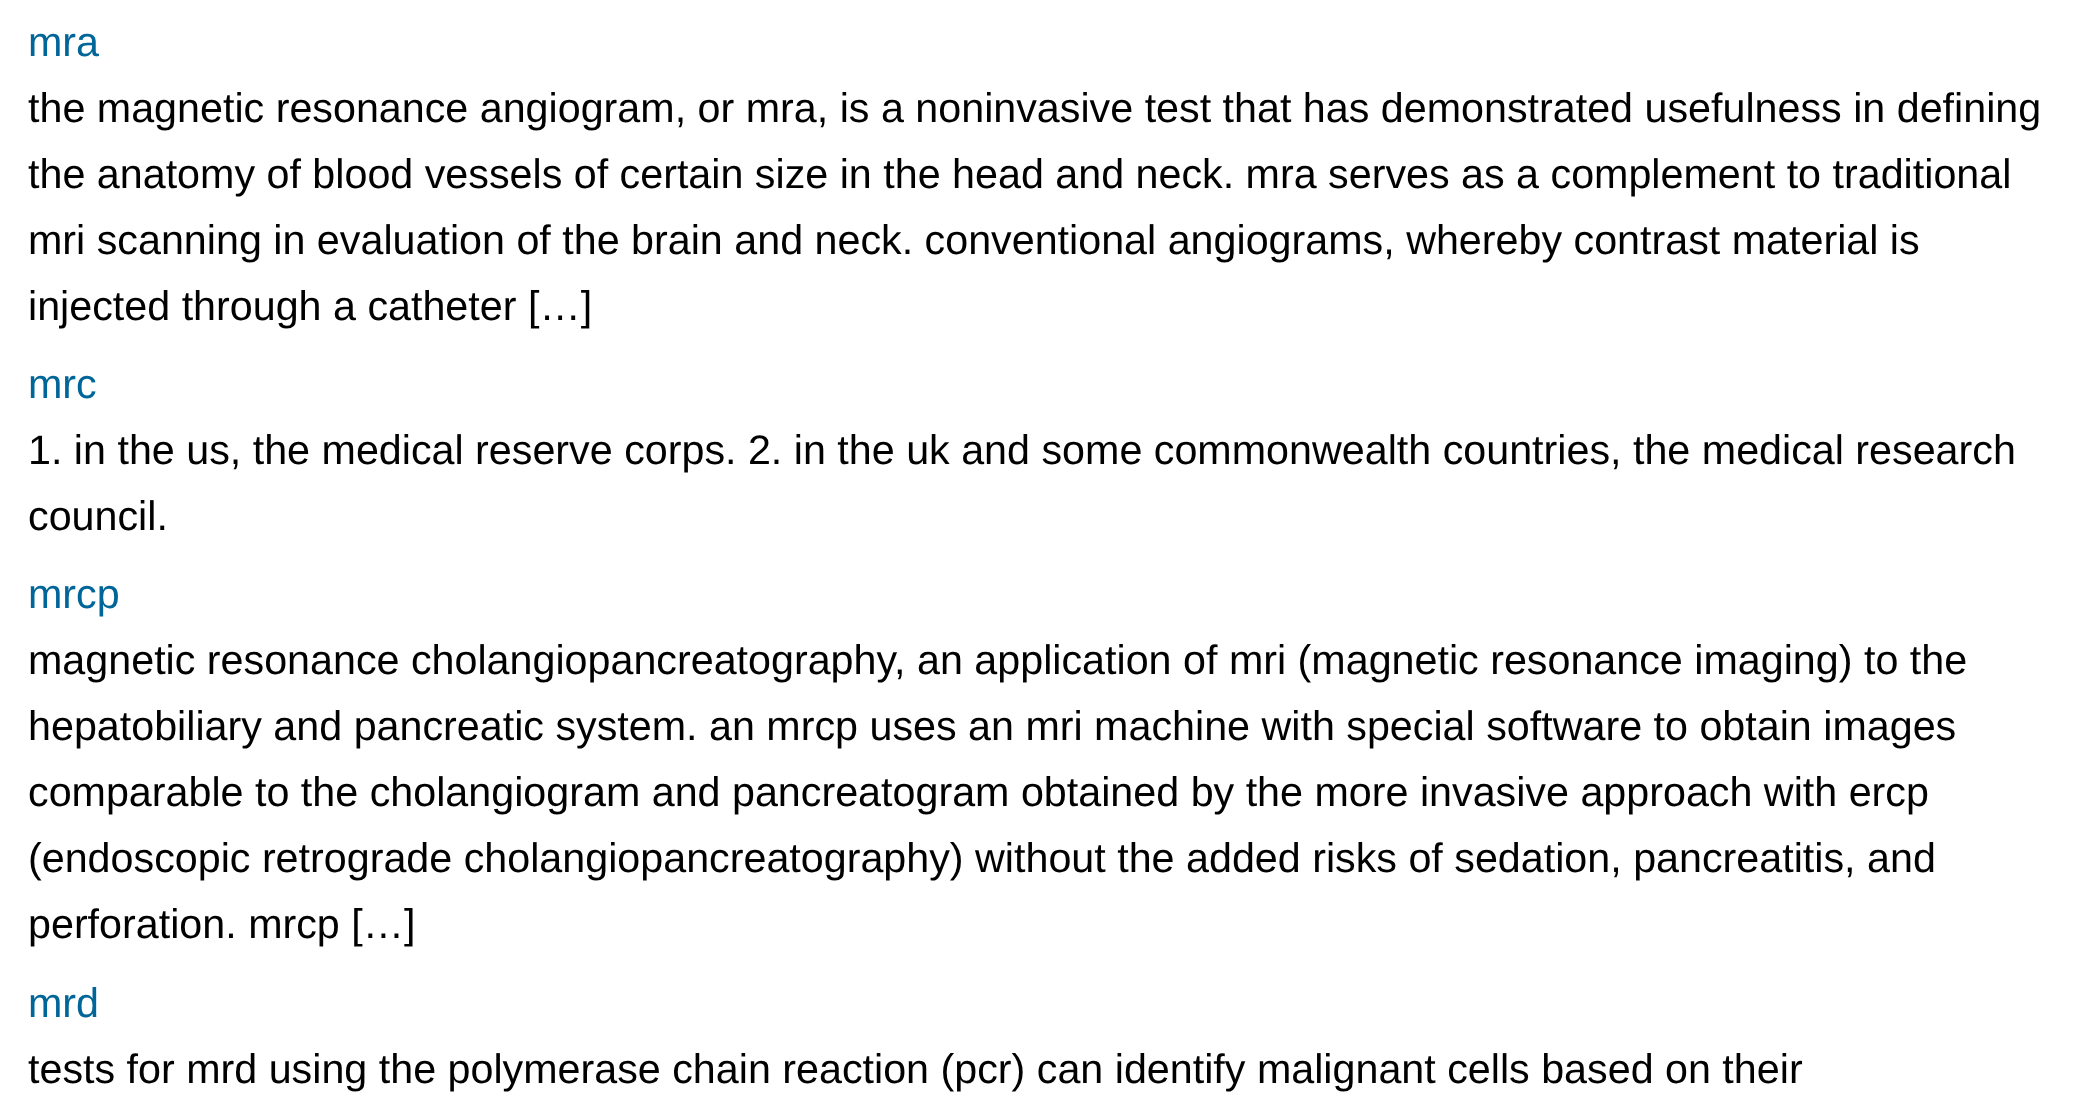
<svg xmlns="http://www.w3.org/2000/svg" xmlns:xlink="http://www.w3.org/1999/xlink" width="2081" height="1119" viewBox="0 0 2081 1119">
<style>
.cls-1{font:41.25px Liberation Sans;fill:#006699}
.cls-2{font:41.25px Liberation Sans;fill:#000000}
</style>
<rect width="100%" height="100%" fill="#ffffff"/>
<text class="cls-1" x="28" y="56">mra</text>
<text class="cls-2"><tspan x="28" y="122">the magnetic resonance angiogram, or mra, is a noninvasive test that has demonstrated usefulness in defining</tspan><tspan x="28" y="188">the anatomy of blood vessels of certain size in the head and neck. mra serves as a complement to traditional</tspan><tspan x="28" y="254">mri scanning in evaluation of the brain and neck. conventional angiograms, whereby contrast material is</tspan><tspan x="28" y="320">injected through a catheter […]</tspan></text>
<text class="cls-1" x="28" y="398">mrc</text>
<text class="cls-2"><tspan x="28" y="464">1. in the us, the medical reserve corps. 2. in the uk and some commonwealth countries, the medical research</tspan><tspan x="28" y="530">council.</tspan></text>
<text class="cls-1" x="28" y="608">mrcp</text>
<text class="cls-2"><tspan x="28" y="674">magnetic resonance cholangiopancreatography, an application of mri (magnetic resonance imaging) to the</tspan><tspan x="28" y="740">hepatobiliary and pancreatic system. an mrcp uses an mri machine with special software to obtain images</tspan><tspan x="28" y="806">comparable to the cholangiogram and pancreatogram obtained by the more invasive approach with ercp</tspan><tspan x="28" y="872">(endoscopic retrograde cholangiopancreatography) without the added risks of sedation, pancreatitis, and</tspan><tspan x="28" y="938">perforation. mrcp […]</tspan></text>
<text class="cls-1" x="28" y="1017">mrd</text>
<text class="cls-2" x="28" y="1083">tests for mrd using the polymerase chain reaction (pcr) can identify malignant cells based on their</text>
</svg>
